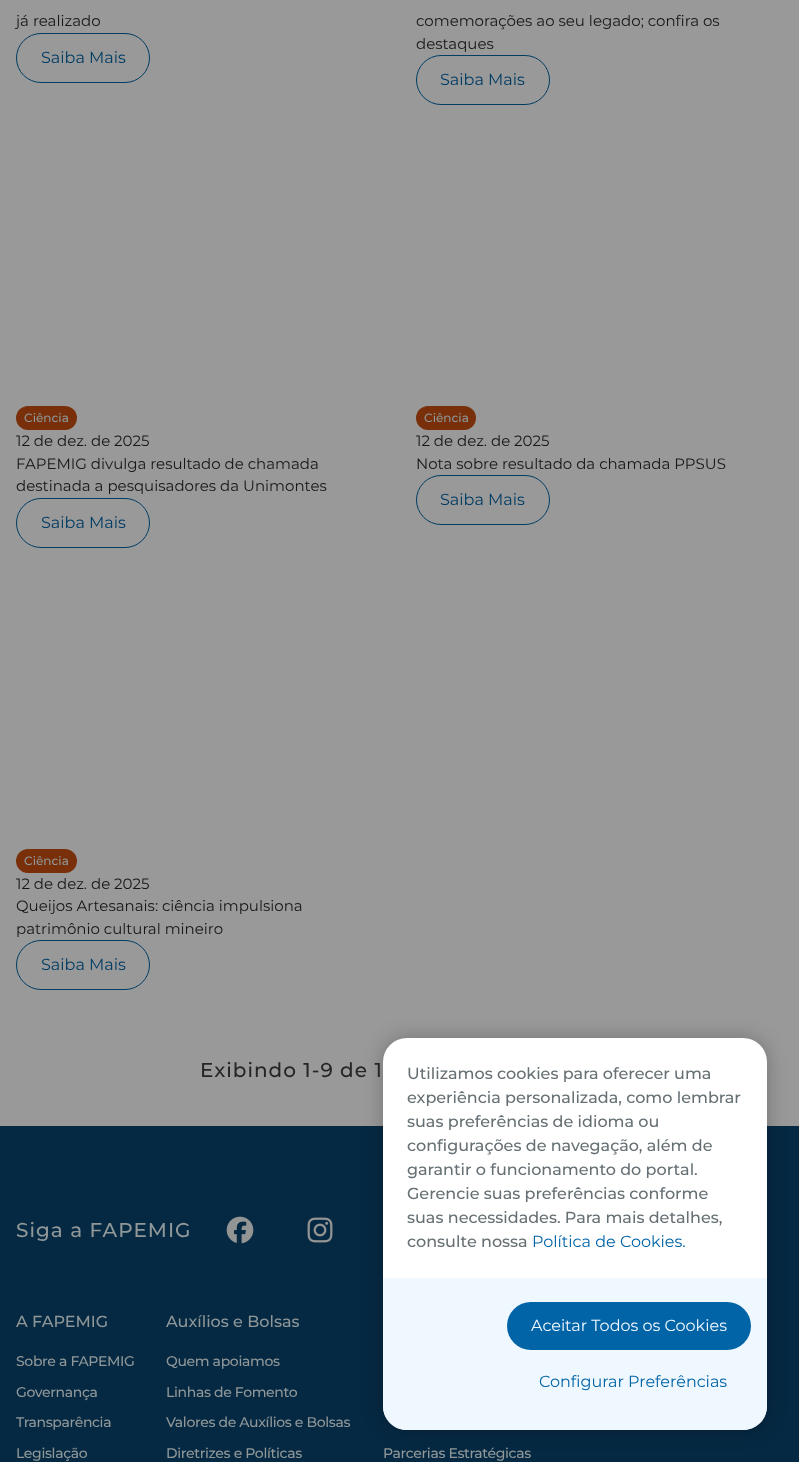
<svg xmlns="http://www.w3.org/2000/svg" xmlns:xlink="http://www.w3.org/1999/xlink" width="799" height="1462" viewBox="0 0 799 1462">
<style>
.cls-1{font:15px Montserrat;fill:#161718}
.cls-2{font:16px Montserrat;fill:#003c64}
.cls-3{font:500 12px Montserrat;fill:#8f9798}
.cls-4{font:500 20px Montserrat;letter-spacing:1px;fill:#232526}
.cls-5{font:500 20px Montserrat;letter-spacing:1px;fill:#8f9798}
.cls-6{font:500 16px Montserrat;fill:#8f9798}
.cls-7{font:500 14px Montserrat;letter-spacing:-0.35px;fill:#8f9798}
.cls-8{font:500 16px Montserrat;fill:#667074}
.cls-9{font:16px Montserrat;fill:#0064a7}
.cls-10{font:16px Montserrat;fill:#f0f8ff}
</style>
<rect width="100%" height="100%" fill="#999999"/>
<rect fill="none" stroke="#003c64" x="16.5" y="33.5" width="133" height="49" rx="24.5"/>
<rect fill="none" stroke="#003c64" x="416.5" y="55.5" width="133" height="49" rx="24.5"/>
<rect fill="#79300a" x="16" y="406" width="61" height="24" rx="12"/>
<rect fill="none" stroke="#003c64" x="16.5" y="498.5" width="133" height="49" rx="24.5"/>
<rect fill="#79300a" x="416" y="406" width="60" height="24" rx="12"/>
<rect fill="none" stroke="#003c64" x="416.5" y="475.5" width="133" height="49" rx="24.5"/>
<rect fill="#79300a" x="16" y="849" width="61" height="24" rx="12"/>
<rect fill="none" stroke="#003c64" x="16.5" y="940.5" width="133" height="49" rx="24.5"/>
<rect fill="#062943" x="0" y="1126" width="799" height="336"/>
<image xlink:href="image0.png" x="226" y="1216" width="28" height="28"/>
<image xlink:href="image1.png" x="307" y="1217" width="26" height="26"/>
<rect fill="#000000" fill-opacity="0.24" filter="blur(10px)" x="383" y="1038" width="384" height="392" rx="24"/>
<rect fill="#ffffff" x="383" y="1038" width="384" height="392" rx="24"/>
<path fill="#f0f8ff" d="M383 1278H767V1406C767 1419.5 756.5 1430 743 1430H407C393.5 1430 383 1419.5 383 1406Z"/>
<rect fill="#0064a7" x="507" y="1302" width="244" height="48" rx="24"/>
<text class="cls-1" x="16" y="26">já realizado</text>
<text class="cls-2" x="41" y="63">Saiba Mais</text>
<text class="cls-1"><tspan x="416" y="26">comemorações ao seu legado; confira os</tspan><tspan x="416" y="49">destaques</tspan></text>
<text class="cls-2" x="440" y="85">Saiba Mais</text>
<text class="cls-3" x="24" y="422">Ciência</text>
<text class="cls-1"><tspan x="16" y="446">12 de dez. de 2025</tspan><tspan x="16" y="469">FAPEMIG divulga resultado de chamada</tspan><tspan x="16" y="491">destinada a pesquisadores da Unimontes</tspan></text>
<text class="cls-2" x="41" y="528">Saiba Mais</text>
<text class="cls-3" x="424" y="422">Ciência</text>
<text class="cls-1"><tspan x="416" y="446">12 de dez. de 2025</tspan><tspan x="416" y="469">Nota sobre resultado da chamada PPSUS</tspan></text>
<text class="cls-2" x="440" y="505">Saiba Mais</text>
<text class="cls-3" x="24" y="865">Ciência</text>
<text class="cls-1"><tspan x="16" y="889">12 de dez. de 2025</tspan><tspan x="16" y="911">Queijos Artesanais: ciência impulsiona</tspan><tspan x="16" y="934">patrimônio cultural mineiro</tspan></text>
<text class="cls-2" x="41" y="970">Saiba Mais</text>
<text class="cls-4" x="200" y="1077">Exibindo 1-9 de 1</text>
<text class="cls-5" x="16" y="1237">Siga a FAPEMIG</text>
<text class="cls-6" x="16" y="1327">A FAPEMIG</text>
<text class="cls-7" x="16" y="1366">Sobre a FAPEMIG</text>
<text class="cls-7" x="16" y="1397">Governança</text>
<text class="cls-7" x="16" y="1427">Transparência</text>
<text class="cls-7" x="16" y="1458">Legislação</text>
<text class="cls-6" x="166" y="1327">Auxílios e Bolsas</text>
<text class="cls-7" x="166" y="1366">Quem apoiamos</text>
<text class="cls-7" x="166" y="1397">Linhas de Fomento</text>
<text class="cls-7" x="166" y="1427">Valores de Auxílios e Bolsas</text>
<text class="cls-7" x="166" y="1458">Diretrizes e Políticas</text>
<text class="cls-7" x="383" y="1458">Parcerias Estratégicas</text>
<text class="cls-8"><tspan x="407" y="1079">Utilizamos cookies para oferecer uma</tspan><tspan x="407" y="1103">experiência personalizada, como lembrar</tspan><tspan x="407" y="1127">suas preferências de idioma ou</tspan><tspan x="407" y="1151">configurações de navegação, além de</tspan><tspan x="407" y="1175">garantir o funcionamento do portal.</tspan><tspan x="407" y="1199">Gerencie suas preferências conforme</tspan><tspan x="407" y="1223">suas necessidades. Para mais detalhes,</tspan><tspan x="407" y="1247">consulte nossa</tspan></text>
<text class="cls-9" x="532" y="1247">Política de Cookies.</text>
<text class="cls-10" x="531" y="1331">Aceitar Todos os Cookies</text>
<text class="cls-9" x="539" y="1387">Configurar Preferências</text>
</svg>
